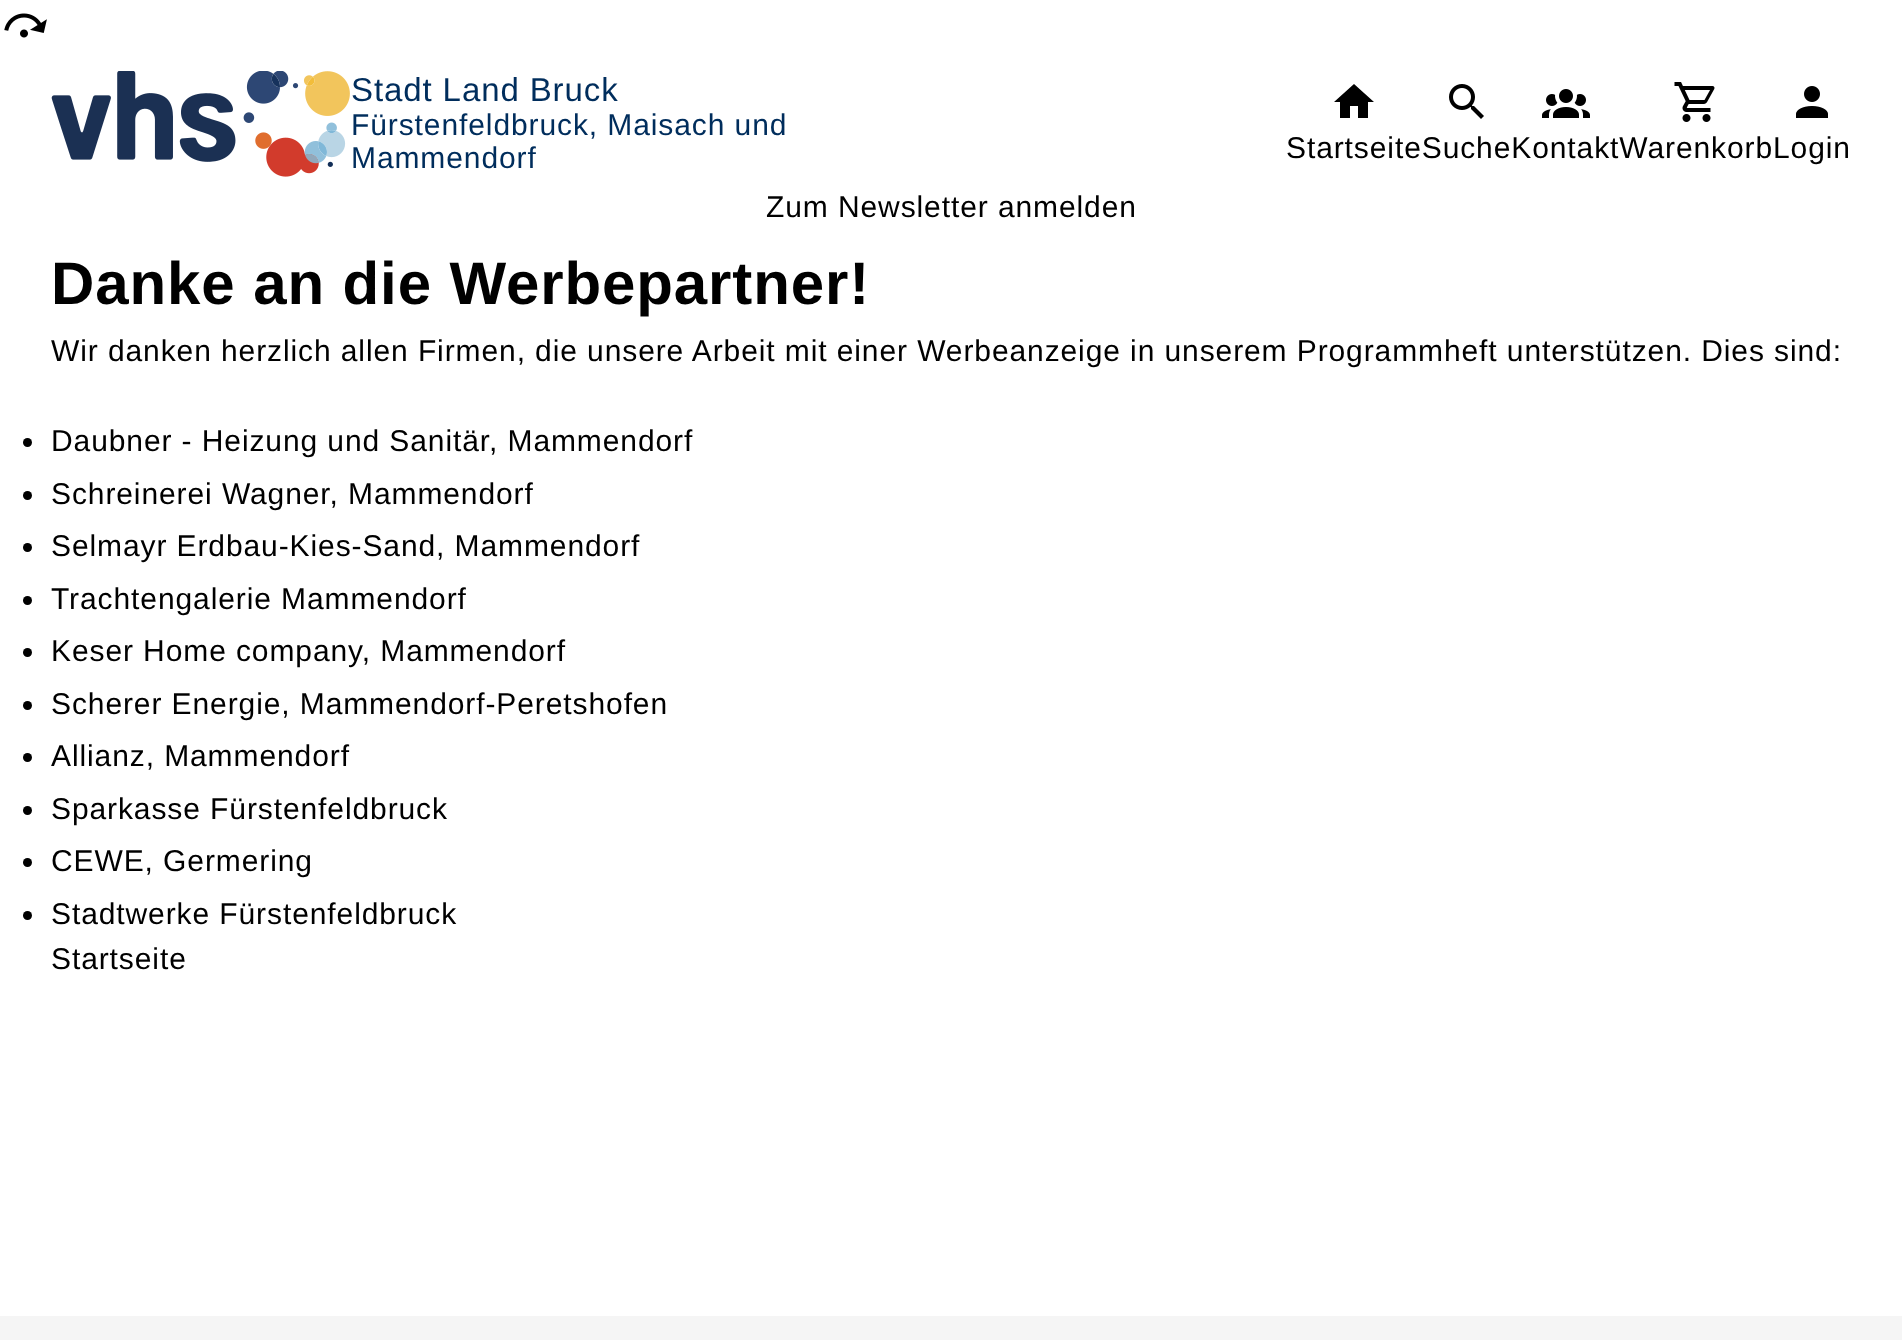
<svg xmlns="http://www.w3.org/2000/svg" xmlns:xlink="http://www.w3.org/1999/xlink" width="1902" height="1340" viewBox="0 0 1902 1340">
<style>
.cls-1{font:33px Liberation Sans;letter-spacing:0.9px;fill:#002d5c}
.cls-2{font:30px Liberation Sans;letter-spacing:0.9px;fill:#002d5c}
.cls-3{font:30px Liberation Sans;letter-spacing:0.9px;fill:#000000}
.cls-4{font:bold 60px Liberation Sans;letter-spacing:0.9px;fill:#000000}
</style>
<rect width="100%" height="100%" fill="#ffffff"/>
<image xlink:href="image0.png" x="4" y="13" width="43" height="25"/>
<image xlink:href="image1.png" x="51" y="71" width="299" height="106"/>
<image xlink:href="image2.png" x="1449" y="84" width="35" height="35"/>
<image xlink:href="image3.png" x="1542" y="89" width="48" height="29"/>
<image xlink:href="image4.png" x="1674" y="82" width="41" height="40"/>
<image xlink:href="image5.png" x="1796" y="86" width="32" height="32"/>
<path fill="#000000" d="M1350 118V106H1358V118H1368V102H1374L1354 84L1334 102H1340V118Z"/>
<circle fill="#000000" cx="27.5" cy="442.5" r="4.5"/>
<circle fill="#000000" cx="27.5" cy="495.5" r="4.5"/>
<circle fill="#000000" cx="27.5" cy="547.5" r="4.5"/>
<circle fill="#000000" cx="27.5" cy="600.5" r="4.5"/>
<circle fill="#000000" cx="27.5" cy="652.5" r="4.5"/>
<circle fill="#000000" cx="27.5" cy="705.5" r="4.5"/>
<circle fill="#000000" cx="27.5" cy="757.5" r="4.5"/>
<circle fill="#000000" cx="27.5" cy="810.5" r="4.5"/>
<circle fill="#000000" cx="27.5" cy="862.5" r="4.5"/>
<circle fill="#000000" cx="27.5" cy="915.5" r="4.5"/>
<rect fill="#f5f5f5" x="0" y="1316" width="1902" height="24"/>
<text class="cls-1" x="351" y="101">Stadt Land Bruck</text>
<text class="cls-2"><tspan x="351" y="135">Fürstenfeldbruck, Maisach und</tspan><tspan x="351" y="168">Mammendorf</tspan></text>
<text class="cls-3" x="1286" y="158">StartseiteSucheKontaktWarenkorbLogin</text>
<text class="cls-3" x="766" y="217">Zum Newsletter anmelden</text>
<text class="cls-4" x="51" y="304">Danke an die Werbepartner!</text>
<text class="cls-3" x="51" y="361">Wir danken herzlich allen Firmen, die unsere Arbeit mit einer Werbeanzeige in unserem Programmheft unterstützen. Dies sind:</text>
<text class="cls-3"><tspan x="51" y="451">Daubner - Heizung und Sanitär, Mammendorf</tspan><tspan x="51" y="504">Schreinerei Wagner, Mammendorf</tspan><tspan x="51" y="556">Selmayr Erdbau-Kies-Sand, Mammendorf</tspan><tspan x="51" y="609">Trachtengalerie Mammendorf</tspan><tspan x="51" y="661">Keser Home company, Mammendorf</tspan><tspan x="51" y="714">Scherer Energie, Mammendorf-Peretshofen</tspan><tspan x="51" y="766">Allianz, Mammendorf</tspan><tspan x="51" y="819">Sparkasse Fürstenfeldbruck</tspan><tspan x="51" y="871">CEWE, Germering</tspan><tspan x="51" y="924">Stadtwerke Fürstenfeldbruck</tspan><tspan x="51" y="969">Startseite</tspan></text>
</svg>
